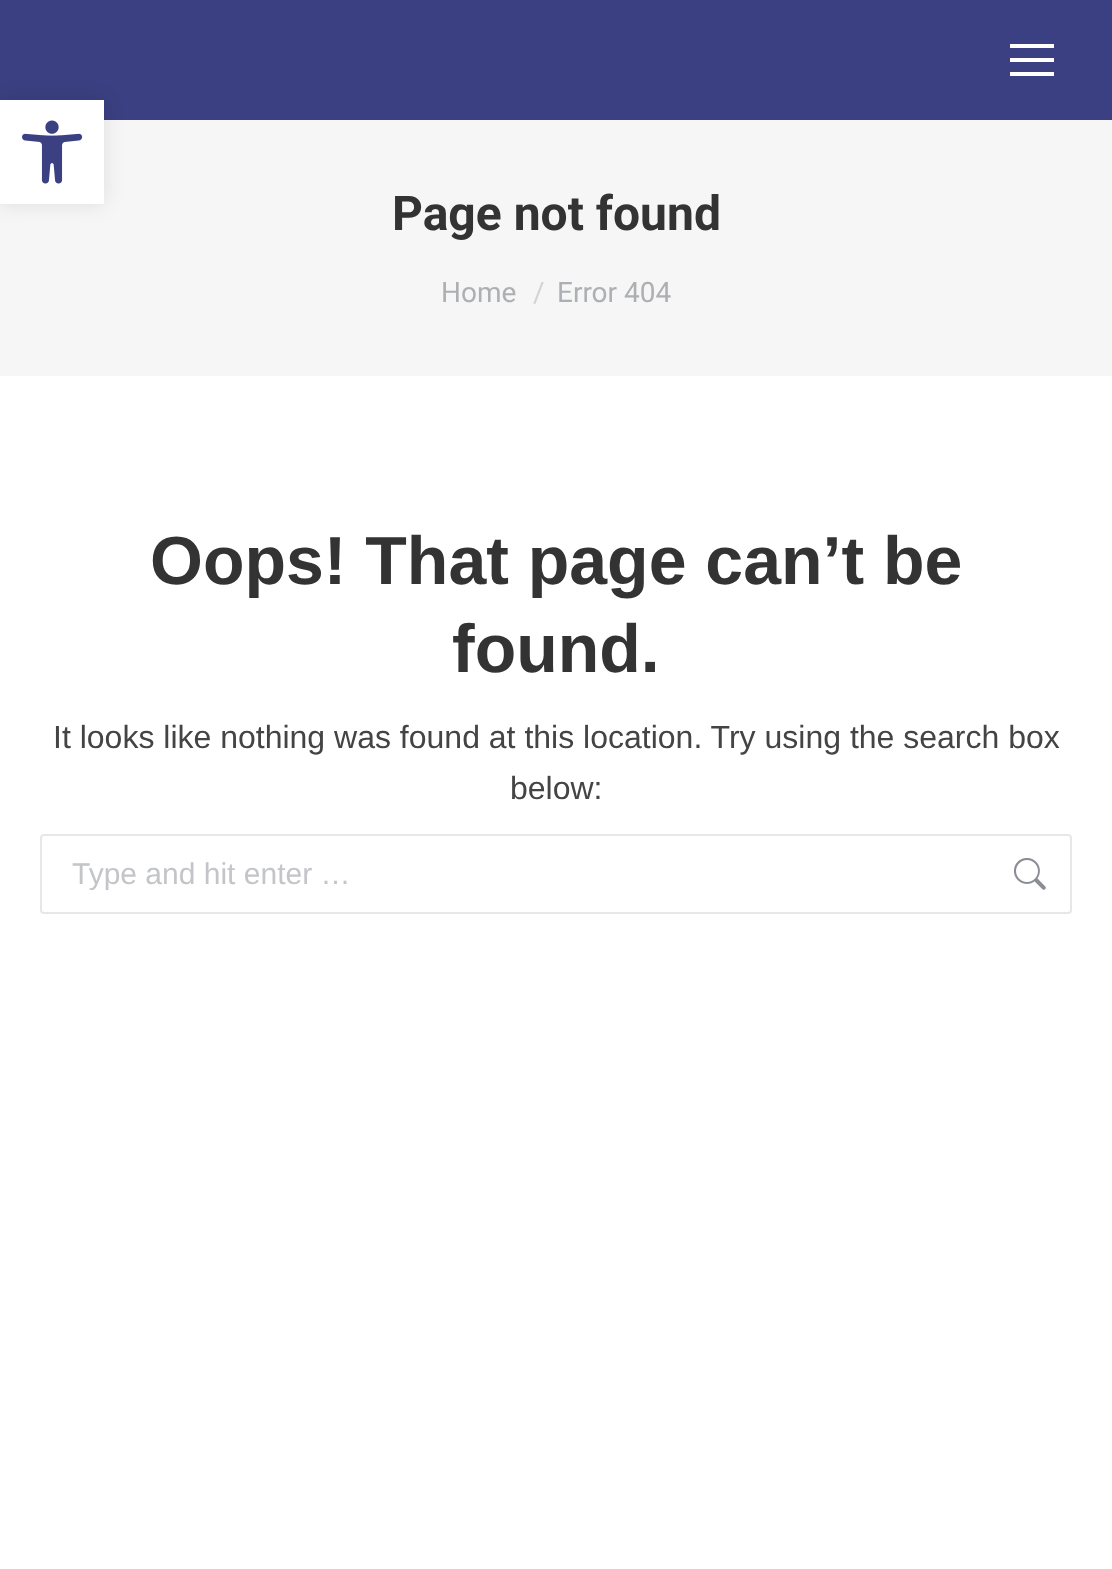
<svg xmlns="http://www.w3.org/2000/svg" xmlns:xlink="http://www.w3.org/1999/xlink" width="1112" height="1569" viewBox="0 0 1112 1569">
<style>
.cls-1{font:bold 48px Roboto;fill:#333333}
.cls-2{font:28px Roboto;fill:#adafb3}
.cls-3{font:28px Roboto;fill:#d2d3d5}
.cls-4{font:bold 68px Liberation Sans;fill:#333333}
.cls-5{font:32px Liberation Sans;fill:#444444}
.cls-6{font:30px Liberation Sans;fill:#c4c5c9}
</style>
<defs>
<clipPath id="clip1"><rect x="72" y="856" width="938" height="34"/></clipPath>
</defs>
<rect width="100%" height="100%" fill="#ffffff"/>
<rect fill="#3a4081" x="0" y="0" width="1112" height="120"/>
<rect fill="#f6f6f6" x="0" y="120" width="1112" height="256"/>
<rect fill="#000000" fill-opacity="0.1" filter="blur(10px)" x="0" y="100" width="104" height="104"/>
<rect fill="#ffffff" x="0" y="100" width="104" height="104"/>
<image xlink:href="image0.png" x="22" y="120" width="61" height="64"/>
<rect fill="#ffffff" x="1010" y="44" width="44" height="4"/>
<rect fill="#ffffff" x="1010" y="58" width="44" height="4"/>
<rect fill="#ffffff" x="1010" y="72" width="44" height="4"/>
<rect fill="none" stroke="#e7e7e7" stroke-width="2" x="41" y="835" width="1030" height="78" rx="3"/>
<image xlink:href="image1.png" x="1014" y="858" width="32" height="32"/>
<text class="cls-1" x="392" y="230">Page not found</text>
<text class="cls-2" x="441" y="302">Home</text>
<text class="cls-3" x="533" y="302">/</text>
<text class="cls-2" x="557" y="302">Error 404</text>
<text class="cls-4" x="150" y="584">Oops! That page can’t be</text>
<text class="cls-4" x="452" y="672">found.</text>
<text class="cls-5" x="53" y="748">It looks like nothing was found at this location. Try using the search box</text>
<text class="cls-5" x="510" y="799">below:</text>
<g clip-path="url(#clip1)">
<text class="cls-6" x="72" y="884">Type and hit enter …</text>
</g>
</svg>
